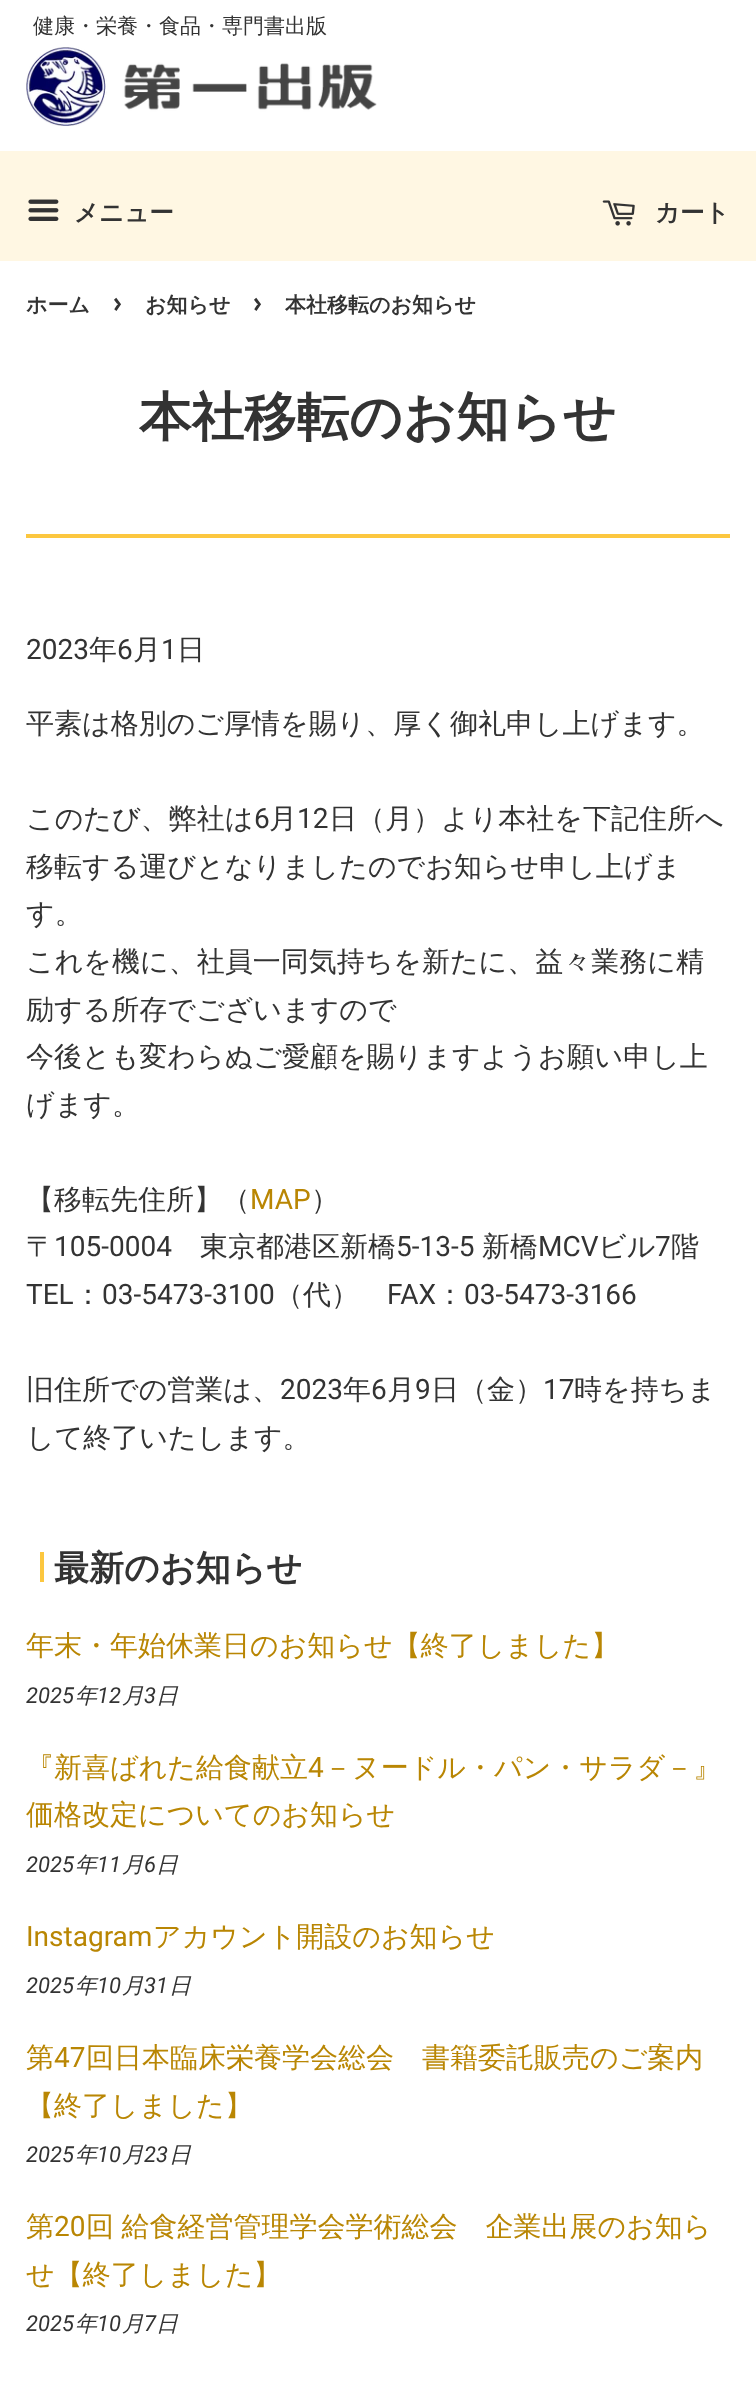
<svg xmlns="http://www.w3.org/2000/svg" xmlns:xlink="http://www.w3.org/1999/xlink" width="756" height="2385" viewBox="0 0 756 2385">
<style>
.cls-1{font:500 21px WenQuanYi Zen Hei;fill:#333333}
.cls-2{font:bold 24.5px WenQuanYi Zen Hei;fill:#333333}
.cls-3{font:bold 21px WenQuanYi Zen Hei;fill:#333333}
.cls-4{font:bold 29px PT Sans;fill:#333333}
.cls-5{font:bold 52.5px WenQuanYi Zen Hei;fill:#333333}
.cls-6{font:28px Roboto;fill:#333333}
.cls-7{font:500 28px WenQuanYi Zen Hei;fill:#333333}
.cls-8{font:28px Roboto;fill:#b98603}
.cls-9{font:bold 35px WenQuanYi Zen Hei;fill:#333333}
.cls-10{font:500 28px WenQuanYi Zen Hei;fill:#b98603}
.cls-11{font:italic 22px Roboto;fill:#333333}
.cls-12{font:italic 500 22px WenQuanYi Zen Hei;fill:#333333}
</style>
<rect width="100%" height="100%" fill="#ffffff"/>
<image xlink:href="image0.png" x="26" y="47" width="351" height="79"/>
<rect fill="#fff7e3" x="0" y="151" width="756" height="110"/>
<image xlink:href="image1.png" x="28" y="199" width="31" height="22"/>
<image xlink:href="image2.png" x="602" y="200" width="33" height="26"/>
<rect fill="#fcc73f" x="26" y="534" width="704" height="4"/>
<rect fill="#fcc73f" x="40" y="1552" width="4" height="30"/>
<text class="cls-1" x="33" y="33">健康・栄養・食品・専門書出版</text>
<text class="cls-2" x="74" y="221">メニュー</text>
<text class="cls-2" x="655" y="221">カート</text>
<text class="cls-3" x="26" y="312">ホーム</text>
<text class="cls-4" x="113" y="312">›</text>
<text class="cls-3" x="145" y="312">お知らせ</text>
<text class="cls-4" x="253" y="312">›</text>
<text class="cls-3" x="285" y="312">本社移転のお知らせ</text>
<text class="cls-5" x="139" y="435">本社移転のお知らせ</text>
<text class="cls-6" x="26" y="659">2023</text>
<text class="cls-7" x="89" y="659">年</text>
<text class="cls-6" x="117" y="659">6</text>
<text class="cls-7" x="133" y="659">月</text>
<text class="cls-6" x="161" y="659">1</text>
<text class="cls-7" x="177" y="659">日</text>
<text class="cls-7" x="26" y="733">平素は格別のご厚情を賜り、厚く御礼申し上げます。</text>
<text class="cls-7" x="26" y="828">このたび、弊社は</text>
<text class="cls-6" x="254" y="828">6</text>
<text class="cls-7" x="269" y="828">月</text>
<text class="cls-6" x="297" y="828">12</text>
<text class="cls-7" x="329" y="828">日（月）より本社を下記住所へ</text>
<text class="cls-7"><tspan x="26" y="876">移転する運びとなりましたのでお知らせ申し上げま</tspan><tspan x="26" y="923">す。</tspan><tspan x="26" y="971">これを機に、社員一同気持ちを新たに、益々業務に精</tspan><tspan x="26" y="1019">励する所存でございますので</tspan><tspan x="26" y="1066">今後とも変わらぬご愛顧を賜りますようお願い申し上</tspan><tspan x="26" y="1114">げます。</tspan></text>
<text class="cls-7" x="26" y="1209">【移転先住所】（</text>
<text class="cls-8" x="250" y="1209">MAP</text>
<text class="cls-7" x="311" y="1209">）</text>
<text class="cls-7" x="26" y="1256">〒</text>
<text class="cls-6" x="54" y="1256">105-0004</text>
<text class="cls-7" x="200" y="1256">東京都港区新橋</text>
<text class="cls-6" x="396" y="1256">5-13-5</text>
<text class="cls-7" x="482" y="1256">新橋</text>
<text class="cls-6" x="538" y="1256">MCV</text>
<text class="cls-7" x="598" y="1256">ビル</text>
<text class="cls-6" x="655" y="1256">7</text>
<text class="cls-7" x="671" y="1256">階</text>
<text class="cls-6" x="26" y="1304">TEL</text>
<text class="cls-7" x="74" y="1304">：</text>
<text class="cls-6" x="102" y="1304">03-5473-3100</text>
<text class="cls-7" x="275" y="1304">（代）</text>
<text class="cls-6" x="387" y="1304">FAX</text>
<text class="cls-7" x="436" y="1304">：</text>
<text class="cls-6" x="464" y="1304">03-5473-3166</text>
<text class="cls-7" x="26" y="1399">旧住所での営業は、</text>
<text class="cls-6" x="280" y="1399">2023</text>
<text class="cls-7" x="343" y="1399">年</text>
<text class="cls-6" x="371" y="1399">6</text>
<text class="cls-7" x="387" y="1399">月</text>
<text class="cls-6" x="415" y="1399">9</text>
<text class="cls-7" x="431" y="1399">日（金）</text>
<text class="cls-6" x="543" y="1399">17</text>
<text class="cls-7" x="574" y="1399">時を持ちま</text>
<text class="cls-7" x="26" y="1447">して終了いたします。</text>
<text class="cls-9" x="54" y="1580">最新のお知らせ</text>
<text class="cls-10" x="26" y="1655">年末・年始休業日のお知らせ【終了しました】</text>
<text class="cls-11" x="26" y="1703">2025</text>
<text class="cls-12" x="75" y="1703">年</text>
<text class="cls-11" x="97" y="1703">12</text>
<text class="cls-12" x="122" y="1703">月</text>
<text class="cls-11" x="144" y="1703">3</text>
<text class="cls-12" x="156" y="1703">日</text>
<text class="cls-10" x="26" y="1777">『新喜ばれた給食献立</text>
<text class="cls-8" x="308" y="1777">4</text>
<text class="cls-10" x="324" y="1777">－ヌードル・パン・サラダ－』</text>
<text class="cls-10" x="26" y="1824">価格改定についてのお知らせ</text>
<text class="cls-11" x="26" y="1872">2025</text>
<text class="cls-12" x="75" y="1872">年</text>
<text class="cls-11" x="97" y="1872">11</text>
<text class="cls-12" x="122" y="1872">月</text>
<text class="cls-11" x="144" y="1872">6</text>
<text class="cls-12" x="156" y="1872">日</text>
<text class="cls-8" x="26" y="1946">Instagram</text>
<text class="cls-10" x="153" y="1946">アカウント開設のお知らせ</text>
<text class="cls-11" x="26" y="1993">2025</text>
<text class="cls-12" x="75" y="1993">年</text>
<text class="cls-11" x="97" y="1993">10</text>
<text class="cls-12" x="122" y="1993">月</text>
<text class="cls-11" x="144" y="1993">31</text>
<text class="cls-12" x="169" y="1993">日</text>
<text class="cls-10" x="26" y="2067">第</text>
<text class="cls-8" x="54" y="2067">47</text>
<text class="cls-10" x="86" y="2067">回日本臨床栄養学会総会　書籍委託販売のご案内</text>
<text class="cls-10" x="26" y="2115">【終了しました】</text>
<text class="cls-11" x="26" y="2162">2025</text>
<text class="cls-12" x="75" y="2162">年</text>
<text class="cls-11" x="97" y="2162">10</text>
<text class="cls-12" x="122" y="2162">月</text>
<text class="cls-11" x="144" y="2162">23</text>
<text class="cls-12" x="169" y="2162">日</text>
<text class="cls-10" x="26" y="2236">第</text>
<text class="cls-8" x="54" y="2236">20</text>
<text class="cls-10" x="86" y="2236" word-spacing="-1">回 給食経営管理学会学術総会　企業出展のお知ら</text>
<text class="cls-10" x="26" y="2284">せ【終了しました】</text>
<text class="cls-11" x="26" y="2331">2025</text>
<text class="cls-12" x="75" y="2331">年</text>
<text class="cls-11" x="97" y="2331">10</text>
<text class="cls-12" x="122" y="2331">月</text>
<text class="cls-11" x="144" y="2331">7</text>
<text class="cls-12" x="156" y="2331">日</text>
</svg>
